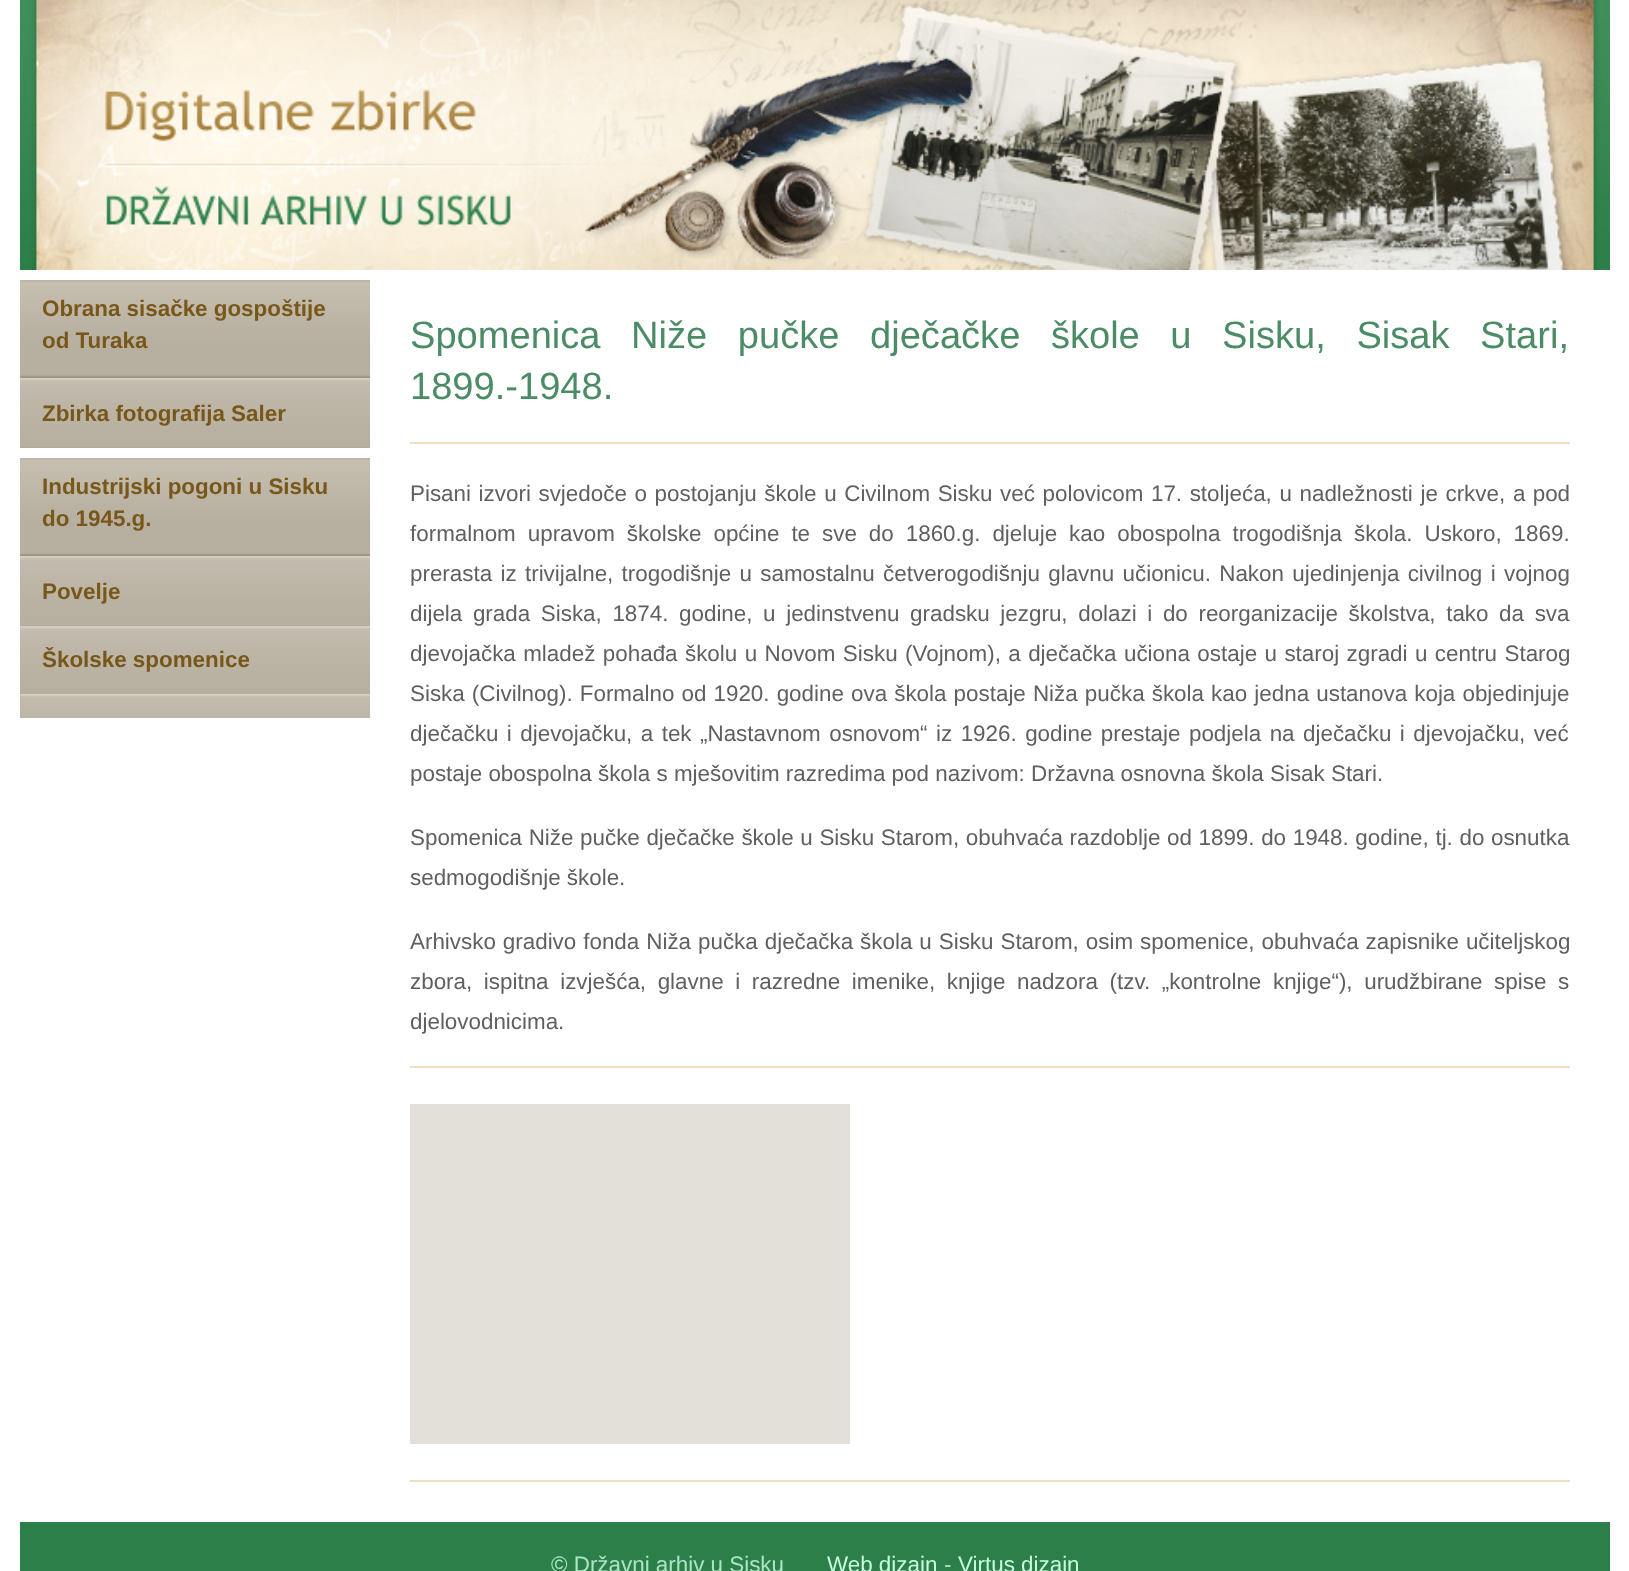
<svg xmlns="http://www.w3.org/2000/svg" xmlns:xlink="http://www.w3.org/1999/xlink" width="1629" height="1571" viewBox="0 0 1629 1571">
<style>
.cls-1{font:bold 22.4px Liberation Sans;fill:#78571a}
.cls-2{font:38.1px Liberation Sans;fill:#4b8c67}
.cls-3{font:22.4px Liberation Sans;fill:#5f5f5f}
.cls-4{font:22.4px Liberation Sans;fill:#ace5c5}
.cls-5{font:22.4px Liberation Sans;fill:#c6ffdf}
</style>
<rect width="100%" height="100%" fill="#ffffff"/>
<image xlink:href="image0.png" x="20" y="0" width="1590" height="270"/>
<image xlink:href="image1.png" x="20" y="280" width="350" height="98"/>
<image xlink:href="image2.png" x="20" y="378" width="350" height="70"/>
<image xlink:href="image1.png" x="20" y="458" width="350" height="98"/>
<image xlink:href="image2.png" x="20" y="556" width="350" height="70"/>
<image xlink:href="image3.png" x="20" y="626" width="350" height="68"/>
<image xlink:href="image4.png" x="20" y="694" width="350" height="24"/>
<rect fill="#efe0c3" x="410" y="442" width="1160" height="2"/>
<rect fill="#efe0c3" x="410" y="1066" width="1160" height="2"/>
<rect fill="#efe0c3" x="410" y="1480" width="1160" height="2"/>
<rect fill="#e3e0da" x="410" y="1104" width="440" height="340"/>
<rect fill="#2c7f48" x="20" y="1522" width="1590" height="49"/>
<text class="cls-1"><tspan x="42" y="316">Obrana sisačke gospoštije</tspan><tspan x="42" y="348">od Turaka</tspan></text>
<text class="cls-1" x="42" y="421">Zbirka fotografija Saler</text>
<text class="cls-1"><tspan x="42" y="494">Industrijski pogoni u Sisku</tspan><tspan x="42" y="526">do 1945.g.</tspan></text>
<text class="cls-1" x="42" y="599">Povelje</text>
<text class="cls-1" x="42" y="667">Školske spomenice</text>
<text class="cls-2"><tspan x="410" y="348" word-spacing="20">Spomenica Niže pučke dječačke škole u Sisku, Sisak Stari,</tspan><tspan x="410" y="399">1899.-1948.</tspan></text>
<text class="cls-3" x="410" y="501" word-spacing="1.4">Pisani izvori svjedoče o postojanju škole u Civilnom Sisku već polovicom 17. stoljeća, u nadležnosti je crkve,</text>
<text class="cls-3" x="1513" y="501" word-spacing="1">a pod</text>
<text class="cls-3"><tspan x="410" y="541" word-spacing="5.75">formalnom upravom školske općine te sve do 1860.g. djeluje kao obospolna trogodišnja škola. Uskoro, 1869.</tspan><tspan x="410" y="581" word-spacing="2.1">prerasta iz trivijalne, trogodišnje u samostalnu četverogodišnju glavnu učionicu. Nakon ujedinjenja civilnog i vojnog</tspan><tspan x="410" y="621" word-spacing="4.4">dijela grada Siska, 1874. godine, u jedinstvenu gradsku jezgru, dolazi i do reorganizacije školstva, tako da sva</tspan><tspan x="410" y="661" word-spacing="1.2">djevojačka mladež pohađa školu u Novom Sisku (Vojnom), a dječačka učiona ostaje u staroj zgradi u centru Starog</tspan><tspan x="410" y="701" word-spacing="0.9">Siska (Civilnog). Formalno od 1920. godine ova škola postaje Niža pučka škola kao jedna ustanova koja objedinjuje</tspan><tspan x="410" y="741" word-spacing="2.25">dječačku i djevojačku, a tek „Nastavnom osnovom“ iz 1926. godine prestaje podjela na dječačku i djevojačku, već</tspan><tspan x="410" y="781">postaje obospolna škola s mješovitim razredima pod nazivom: Državna osnovna škola Sisak Stari.</tspan></text>
<text class="cls-3"><tspan x="410" y="845" word-spacing="0.4">Spomenica Niže pučke dječačke škole u Sisku Starom, obuhvaća razdoblje od 1899. do 1948. godine, tj. do osnutka</tspan><tspan x="410" y="885">sedmogodišnje škole.</tspan></text>
<text class="cls-3"><tspan x="410" y="949" word-spacing="0.75">Arhivsko gradivo fonda Niža pučka dječačka škola u Sisku Starom, osim spomenice, obuhvaća zapisnike učiteljskog</tspan><tspan x="410" y="989" word-spacing="5.4">zbora, ispitna izvješća, glavne i razredne imenike, knjige nadzora (tzv. „kontrolne knjige“), urudžbirane spise s</tspan><tspan x="410" y="1029">djelovodnicima.</tspan></text>
<text class="cls-4" x="551" y="1572">© Državni arhiv u Sisku</text>
<text class="cls-5" x="827" y="1572">Web dizajn</text>
<text class="cls-4" x="944" y="1572">-</text>
<text class="cls-5" x="958" y="1572">Virtus dizajn</text>
</svg>
